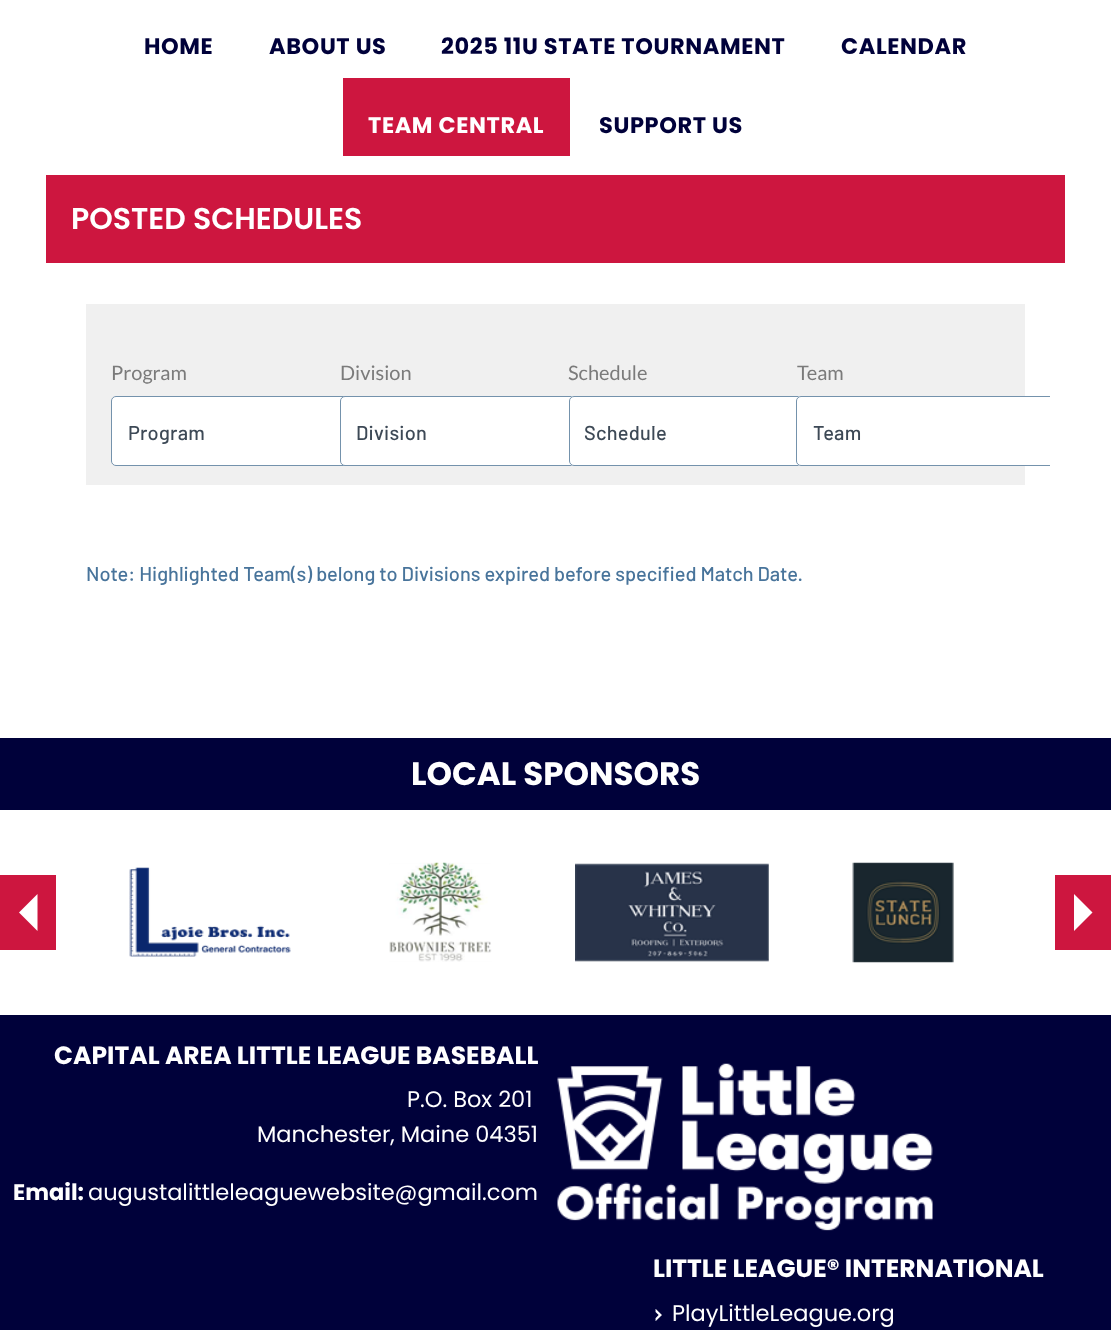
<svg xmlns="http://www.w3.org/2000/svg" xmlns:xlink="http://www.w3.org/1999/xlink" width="1111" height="1330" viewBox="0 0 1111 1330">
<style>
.cls-1{font:bold 22.5px Poppins;letter-spacing:0.6px;fill:#00013a}
.cls-2{font:bold 22.5px Poppins;letter-spacing:0.6px;fill:#ffffff}
.cls-3{font:600 30px Poppins;fill:#ffffff}
.cls-4{font:20px Lato;fill:#7b7b7b}
.cls-5{font:500 20px Barlow;letter-spacing:0.25px;fill:#3d4956}
.cls-6{font:500 20px Barlow;fill:#48749b}
.cls-7{font:bold 32.5px Poppins;fill:#ffffff}
.cls-8{font:bold 25px Poppins;fill:#ffffff}
.cls-9{font:22.5px Poppins;fill:#ffffff}
.cls-10{font:bold 22.5px Poppins;fill:#ffffff}
</style>
<defs>
<clipPath id="clip1"><rect x="61" y="278" width="989" height="401"/></clipPath>
</defs>
<rect width="100%" height="100%" fill="#00013a"/>
<rect fill="#ffffff" x="0" y="0" width="1111" height="738"/>
<rect fill="#cd163f" x="343" y="78" width="227" height="78"/>
<rect fill="#cd163f" x="46" y="175" width="1019" height="88"/>
<rect fill="#f0f0f0" x="86" y="304" width="939" height="181"/>
<rect fill="#ffffff" stroke="#7492ac" x="111.5" y="396.5" width="663" height="69" rx="4.5"/>
<rect fill="#ffffff" stroke="#7492ac" x="340.5" y="396.5" width="663" height="69" rx="4.5"/>
<path fill="#ffffff" d="M574 396H1050V466H574C571 466 569 464 569 461V401C569 398 571 396 574 396Z"/>
<g clip-path="url(#clip1)">
<rect fill="none" stroke="#7492ac" x="569.5" y="396.5" width="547" height="69" rx="4.5"/>
</g>
<path fill="#ffffff" d="M801 396H1050V466H801C798 466 796 464 796 461V401C796 398 798 396 801 396Z"/>
<g clip-path="url(#clip1)">
<rect fill="none" stroke="#7492ac" x="796.5" y="396.5" width="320" height="69" rx="4.5"/>
</g>
<rect fill="#ffffff" x="0" y="810" width="1111" height="205"/>
<rect fill="#cd163f" x="0" y="875" width="56" height="75"/>
<path fill="#ffffff" d="M37.5 894V931L19 912.5Z"/>
<image xlink:href="image0.png" x="129" y="867" width="162" height="90"/>
<image xlink:href="image1.png" x="389" y="862" width="103" height="100"/>
<image xlink:href="image2.png" x="575" y="863" width="194" height="99"/>
<image xlink:href="image3.png" x="852" y="862" width="102" height="101"/>
<rect fill="#cd163f" x="1055" y="875" width="56" height="75"/>
<path fill="#ffffff" d="M1074 931V894L1092.5 912.5Z"/>
<image xlink:href="image4.png" x="557" y="1063" width="376" height="168"/>
<image xlink:href="image5.png" x="655" y="1309" width="7" height="12"/>
<text class="cls-1" x="144" y="54">HOME</text>
<text class="cls-1" x="269" y="54">ABOUT US</text>
<text class="cls-1" x="441" y="54">2025 11U STATE TOURNAMENT</text>
<text class="cls-1" x="841" y="54">CALENDAR</text>
<text class="cls-2" x="368" y="133">TEAM CENTRAL</text>
<text class="cls-1" x="599" y="133">SUPPORT US</text>
<text class="cls-3" x="71" y="229">POSTED SCHEDULES</text>
<text class="cls-4" x="111" y="380">Program</text>
<text class="cls-5" x="128" y="440">Program</text>
<text class="cls-4" x="340" y="380">Division</text>
<text class="cls-5" x="356" y="440">Division</text>
<text class="cls-4" x="568" y="380">Schedule</text>
<text class="cls-5" x="584" y="440">Schedule</text>
<text class="cls-4" x="797" y="380">Team</text>
<text class="cls-5" x="813" y="440">Team</text>
<text class="cls-6" x="86" y="581">Note: Highlighted Team(s) belong to Divisions expired before specified Match Date.</text>
<text class="cls-7" x="411" y="785">LOCAL SPONSORS</text>
<text class="cls-8" x="54" y="1064">CAPITAL AREA LITTLE LEAGUE BASEBALL</text>
<text class="cls-9" x="407" y="1107">P.O. Box 201</text>
<text class="cls-9" x="257" y="1142">Manchester, Maine 04351</text>
<text class="cls-10" x="13" y="1200">Email:</text>
<text class="cls-9" x="88" y="1200">augustalittleleaguewebsite@gmail.com</text>
<text class="cls-8" x="653" y="1277">LITTLE LEAGUE® INTERNATIONAL</text>
<text class="cls-9" x="672" y="1321">PlayLittleLeague.org</text>
</svg>
